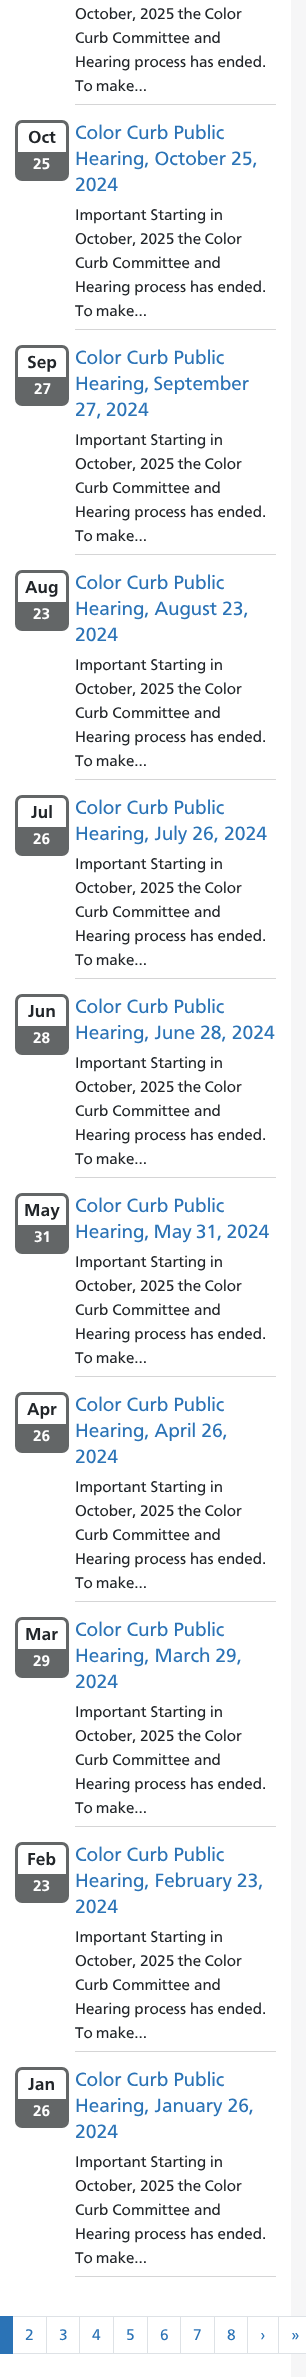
<svg xmlns="http://www.w3.org/2000/svg" xmlns:xlink="http://www.w3.org/1999/xlink" width="306" height="2377" viewBox="0 0 306 2377">
<style>*{font-kerning:none!important;font-variant-ligatures:none!important}</style>
<style>
.cls-1{font:16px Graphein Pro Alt;fill:#212529}
.cls-2{font:16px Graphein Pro;fill:#212529}
.cls-3{font:bold 18px Graphein Pro;fill:#212529}
.cls-4{font:bold 16px Graphein Pro;fill:#ffffff}
.cls-5{font:20px Graphein Pro;fill:#2b73b6}
.cls-6{font:20px Graphein Pro Alt;fill:#2b73b6}
.cls-7{font:16px Graphein Pro;fill:#2b73b6}
</style>
<rect width="100%" height="100%" fill="#f6f6f7"/>
<rect fill="#ffffff" x="0" y="0" width="291" height="2377"/>
<rect fill="#d5d5d6" x="75" y="104" width="201" height="1"/>
<rect fill="#636667" stroke="#636667" stroke-width="3" x="16.5" y="121.5" width="51" height="58" rx="5.5"/>
<path fill="#ffffff" d="M22 123H62C64 123 66 125 66 127V152H18V127C18 125 20 123 22 123Z"/>
<rect fill="#d5d5d6" x="75" y="329" width="201" height="1"/>
<rect fill="#636667" stroke="#636667" stroke-width="3" x="16.5" y="346.5" width="51" height="58" rx="5.5"/>
<path fill="#ffffff" d="M22 348H62C64 348 66 350 66 352V377H18V352C18 350 20 348 22 348Z"/>
<rect fill="#d5d5d6" x="75" y="554" width="201" height="1"/>
<rect fill="#636667" stroke="#636667" stroke-width="3" x="16.5" y="571.5" width="51" height="58" rx="5.5"/>
<path fill="#ffffff" d="M22 573H62C64 573 66 575 66 577V602H18V577C18 575 20 573 22 573Z"/>
<rect fill="#d5d5d6" x="75" y="779" width="201" height="1"/>
<rect fill="#636667" stroke="#636667" stroke-width="3" x="16.5" y="796.5" width="51" height="58" rx="5.5"/>
<path fill="#ffffff" d="M22 798H62C64 798 66 800 66 802V827H18V802C18 800 20 798 22 798Z"/>
<rect fill="#d5d5d6" x="75" y="978" width="201" height="1"/>
<rect fill="#636667" stroke="#636667" stroke-width="3" x="16.5" y="995.5" width="51" height="58" rx="5.5"/>
<path fill="#ffffff" d="M22 997H62C64 997 66 999 66 1001V1026H18V1001C18 999 20 997 22 997Z"/>
<rect fill="#d5d5d6" x="75" y="1177" width="201" height="1"/>
<rect fill="#636667" stroke="#636667" stroke-width="3" x="16.5" y="1194.5" width="51" height="58" rx="5.5"/>
<path fill="#ffffff" d="M22 1196H62C64 1196 66 1198 66 1200V1225H18V1200C18 1198 20 1196 22 1196Z"/>
<rect fill="#d5d5d6" x="75" y="1376" width="201" height="1"/>
<rect fill="#636667" stroke="#636667" stroke-width="3" x="16.5" y="1393.5" width="51" height="58" rx="5.5"/>
<path fill="#ffffff" d="M22 1395H62C64 1395 66 1397 66 1399V1424H18V1399C18 1397 20 1395 22 1395Z"/>
<rect fill="#d5d5d6" x="75" y="1601" width="201" height="1"/>
<rect fill="#636667" stroke="#636667" stroke-width="3" x="16.5" y="1618.5" width="51" height="58" rx="5.5"/>
<path fill="#ffffff" d="M22 1620H62C64 1620 66 1622 66 1624V1649H18V1624C18 1622 20 1620 22 1620Z"/>
<rect fill="#d5d5d6" x="75" y="1826" width="201" height="1"/>
<rect fill="#636667" stroke="#636667" stroke-width="3" x="16.5" y="1843.5" width="51" height="58" rx="5.5"/>
<path fill="#ffffff" d="M22 1845H62C64 1845 66 1847 66 1849V1874H18V1849C18 1847 20 1845 22 1845Z"/>
<rect fill="#d5d5d6" x="75" y="2051" width="201" height="1"/>
<rect fill="#636667" stroke="#636667" stroke-width="3" x="16.5" y="2068.5" width="51" height="58" rx="5.5"/>
<path fill="#ffffff" d="M22 2070H62C64 2070 66 2072 66 2074V2099H18V2074C18 2072 20 2070 22 2070Z"/>
<rect fill="#d5d5d6" x="75" y="2276" width="201" height="1"/>
<rect fill="none" stroke="#dee2e6" x="12.5" y="2316.5" width="34" height="37"/>
<rect fill="#2b73b6" x="0" y="2316" width="13" height="38"/>
<rect fill="none" stroke="#dee2e6" x="46.5" y="2316.5" width="33" height="37"/>
<rect fill="none" stroke="#dee2e6" x="79.5" y="2316.5" width="34" height="37"/>
<rect fill="none" stroke="#dee2e6" x="113.5" y="2316.5" width="34" height="37"/>
<rect fill="none" stroke="#dee2e6" x="147.5" y="2316.5" width="33" height="37"/>
<rect fill="none" stroke="#dee2e6" x="180.5" y="2316.5" width="34" height="37"/>
<rect fill="none" stroke="#dee2e6" x="214.5" y="2316.5" width="33" height="37"/>
<rect fill="none" stroke="#dee2e6" x="247.5" y="2316.5" width="31" height="37"/>
<rect fill="#ffffff" x="291" y="2317" width="15" height="36"/>
<rect fill="none" stroke="#dee2e6" x="278.5" y="2316.5" width="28" height="37"/>
<text class="cls-1" x="75" y="19" word-spacing="-0.5">October, 2025 the Color</text>
<text class="cls-2"><tspan x="75" y="43">Curb Committee and</tspan><tspan x="75" y="67">Hearing process has ended.</tspan><tspan x="75" y="91" word-spacing="-1">To make...</tspan></text>
<text class="cls-3" x="28" y="143">Oct</text>
<text class="cls-4" x="33" y="169">25</text>
<text class="cls-5" x="75" y="139">Color Curb Public</text>
<text class="cls-6" x="75" y="165">Hearing, October 25,</text>
<text class="cls-5" x="75" y="191">2024</text>
<text class="cls-2" x="75" y="220">Important Starting in</text>
<text class="cls-1" x="75" y="244" word-spacing="-0.5">October, 2025 the Color</text>
<text class="cls-2"><tspan x="75" y="268">Curb Committee and</tspan><tspan x="75" y="292">Hearing process has ended.</tspan><tspan x="75" y="316" word-spacing="-1">To make...</tspan></text>
<text class="cls-3" x="27" y="368">Sep</text>
<text class="cls-4" x="34" y="394">27</text>
<text class="cls-5"><tspan x="75" y="364">Color Curb Public</tspan><tspan x="75" y="390" word-spacing="-1">Hearing, September</tspan><tspan x="75" y="416" word-spacing="-1">27, 2024</tspan></text>
<text class="cls-2" x="75" y="445">Important Starting in</text>
<text class="cls-1" x="75" y="469" word-spacing="-0.5">October, 2025 the Color</text>
<text class="cls-2"><tspan x="75" y="493">Curb Committee and</tspan><tspan x="75" y="517">Hearing process has ended.</tspan><tspan x="75" y="541" word-spacing="-1">To make...</tspan></text>
<text class="cls-3" x="25" y="593">Aug</text>
<text class="cls-4" x="33" y="619">23</text>
<text class="cls-5" x="75" y="589">Color Curb Public</text>
<text class="cls-6" x="75" y="615">Hearing, August 23,</text>
<text class="cls-5" x="75" y="641">2024</text>
<text class="cls-2" x="75" y="670">Important Starting in</text>
<text class="cls-1" x="75" y="694" word-spacing="-0.5">October, 2025 the Color</text>
<text class="cls-2"><tspan x="75" y="718">Curb Committee and</tspan><tspan x="75" y="742">Hearing process has ended.</tspan><tspan x="75" y="766" word-spacing="-1">To make...</tspan></text>
<text class="cls-3" x="31" y="818">Jul</text>
<text class="cls-4" x="33" y="844">26</text>
<text class="cls-5" x="75" y="814">Color Curb Public</text>
<text class="cls-6" x="75" y="840">Hearing, July 26, 2024</text>
<text class="cls-2" x="75" y="869">Important Starting in</text>
<text class="cls-1" x="75" y="893" word-spacing="-0.5">October, 2025 the Color</text>
<text class="cls-2"><tspan x="75" y="917">Curb Committee and</tspan><tspan x="75" y="941">Hearing process has ended.</tspan><tspan x="75" y="965" word-spacing="-1">To make...</tspan></text>
<text class="cls-3" x="28" y="1017">Jun</text>
<text class="cls-4" x="33" y="1043">28</text>
<text class="cls-5" x="75" y="1013">Color Curb Public</text>
<text class="cls-6" x="75" y="1039">Hearing, June 28, 2024</text>
<text class="cls-2" x="75" y="1068">Important Starting in</text>
<text class="cls-1" x="75" y="1092" word-spacing="-0.5">October, 2025 the Color</text>
<text class="cls-2"><tspan x="75" y="1116">Curb Committee and</tspan><tspan x="75" y="1140">Hearing process has ended.</tspan><tspan x="75" y="1164" word-spacing="-1">To make...</tspan></text>
<text class="cls-3" x="24" y="1216">May</text>
<text class="cls-4" x="34" y="1242">31</text>
<text class="cls-5" x="75" y="1212">Color Curb Public</text>
<text class="cls-6" x="75" y="1238" word-spacing="-1">Hearing, May 31, 2024</text>
<text class="cls-2" x="75" y="1267">Important Starting in</text>
<text class="cls-1" x="75" y="1291" word-spacing="-0.5">October, 2025 the Color</text>
<text class="cls-2"><tspan x="75" y="1315">Curb Committee and</tspan><tspan x="75" y="1339">Hearing process has ended.</tspan><tspan x="75" y="1363" word-spacing="-1">To make...</tspan></text>
<text class="cls-3" x="27" y="1415">Apr</text>
<text class="cls-4" x="33" y="1441">26</text>
<text class="cls-5" x="75" y="1411">Color Curb Public</text>
<text class="cls-6" x="75" y="1437">Hearing, April 26,</text>
<text class="cls-5" x="75" y="1463">2024</text>
<text class="cls-2" x="75" y="1492">Important Starting in</text>
<text class="cls-1" x="75" y="1516" word-spacing="-0.5">October, 2025 the Color</text>
<text class="cls-2"><tspan x="75" y="1540">Curb Committee and</tspan><tspan x="75" y="1564">Hearing process has ended.</tspan><tspan x="75" y="1588" word-spacing="-1">To make...</tspan></text>
<text class="cls-3" x="25" y="1640">Mar</text>
<text class="cls-4" x="33" y="1666">29</text>
<text class="cls-5" x="75" y="1636">Color Curb Public</text>
<text class="cls-6" x="75" y="1662">Hearing, March 29,</text>
<text class="cls-5" x="75" y="1688">2024</text>
<text class="cls-2" x="75" y="1717">Important Starting in</text>
<text class="cls-1" x="75" y="1741" word-spacing="-0.5">October, 2025 the Color</text>
<text class="cls-2"><tspan x="75" y="1765">Curb Committee and</tspan><tspan x="75" y="1789">Hearing process has ended.</tspan><tspan x="75" y="1813" word-spacing="-1">To make...</tspan></text>
<text class="cls-3" x="27" y="1865">Feb</text>
<text class="cls-4" x="33" y="1891">23</text>
<text class="cls-5" x="75" y="1861">Color Curb Public</text>
<text class="cls-6" x="75" y="1887">Hearing, February 23,</text>
<text class="cls-5" x="75" y="1913">2024</text>
<text class="cls-2" x="75" y="1942">Important Starting in</text>
<text class="cls-1" x="75" y="1966" word-spacing="-0.5">October, 2025 the Color</text>
<text class="cls-2"><tspan x="75" y="1990">Curb Committee and</tspan><tspan x="75" y="2014">Hearing process has ended.</tspan><tspan x="75" y="2038" word-spacing="-1">To make...</tspan></text>
<text class="cls-3" x="28" y="2090">Jan</text>
<text class="cls-4" x="33" y="2116">26</text>
<text class="cls-5" x="75" y="2086">Color Curb Public</text>
<text class="cls-6" x="75" y="2112">Hearing, January 26,</text>
<text class="cls-5" x="75" y="2138">2024</text>
<text class="cls-2" x="75" y="2167">Important Starting in</text>
<text class="cls-1" x="75" y="2191" word-spacing="-0.5">October, 2025 the Color</text>
<text class="cls-2"><tspan x="75" y="2215">Curb Committee and</tspan><tspan x="75" y="2239">Hearing process has ended.</tspan><tspan x="75" y="2263" word-spacing="-1">To make...</tspan></text>
<text class="cls-7" x="25" y="2340">2</text>
<text class="cls-7" x="59" y="2340">3</text>
<text class="cls-7" x="92" y="2340">4</text>
<text class="cls-7" x="126" y="2340">5</text>
<text class="cls-7" x="160" y="2340">6</text>
<text class="cls-7" x="193" y="2340">7</text>
<text class="cls-7" x="227" y="2340">8</text>
<text class="cls-7" x="260" y="2340">›</text>
<text class="cls-7" x="291" y="2340">»</text>
</svg>
